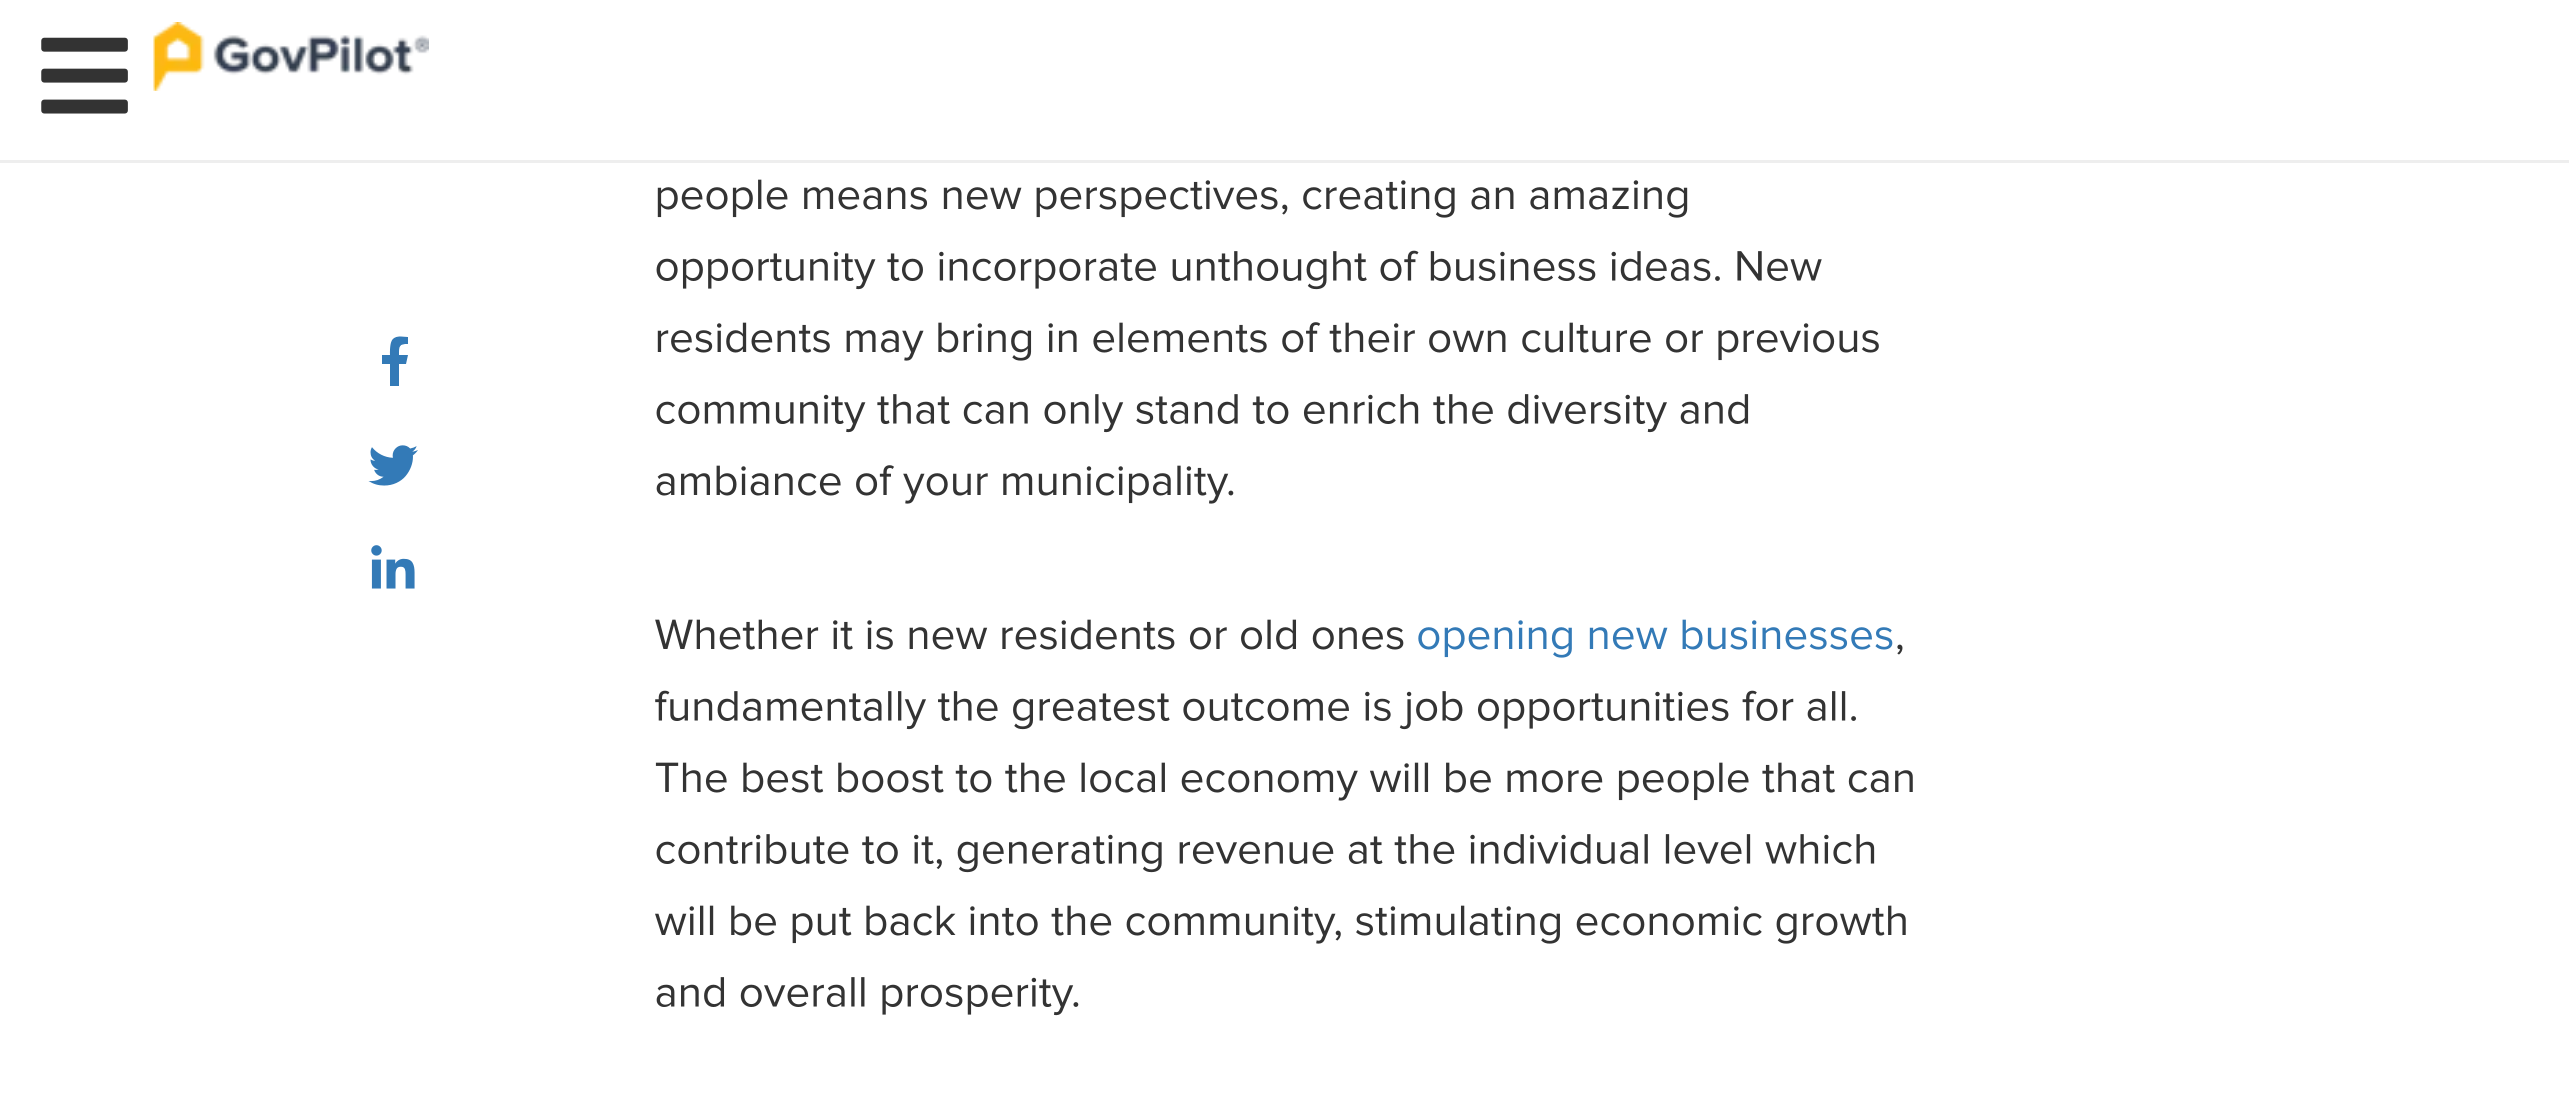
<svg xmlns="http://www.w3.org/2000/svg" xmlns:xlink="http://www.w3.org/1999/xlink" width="2569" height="1102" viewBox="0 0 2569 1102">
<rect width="100%" height="100%" fill="#ffffff"/>
<rect fill="#eeeeee" x="0" y="160" width="2569" height="3"/>
<image xlink:href="image0.png" x="41" y="37" width="87" height="77"/>
<image xlink:href="image1.png" x="153" y="22" width="276" height="69"/>
<path fill="#337ab7" d="M406 364H399V386H390V364H382V355H390C390 338 392 335 408 337V344C399 344 399 346 399 355H408Z"/>
<image xlink:href="image2.png" x="368" y="445" width="50" height="41"/>
<image xlink:href="image3.png" x="371" y="545" width="44" height="44"/>
<image xlink:href="image4.png" x="657" y="179" width="1031" height="39"/>
<image xlink:href="image5.png" x="656" y="250" width="1166" height="40"/>
<image xlink:href="image6.png" x="657" y="322" width="1222" height="39"/>
<image xlink:href="image7.png" x="656" y="394" width="1093" height="39"/>
<image xlink:href="image8.png" x="656" y="465" width="578" height="39"/>
<image xlink:href="image9.png" x="655" y="619" width="749" height="31"/>
<image xlink:href="image10.png" x="1418" y="619" width="475" height="39"/>
<image xlink:href="image11.png" x="1897" y="644" width="6" height="11"/>
<image xlink:href="image12.png" x="655" y="690" width="1201" height="40"/>
<image xlink:href="image13.png" x="655" y="762" width="1258" height="39"/>
<image xlink:href="image14.png" x="656" y="834" width="1219" height="39"/>
<image xlink:href="image15.png" x="655" y="905" width="1251" height="39"/>
<image xlink:href="image16.png" x="656" y="977" width="423" height="39"/>
</svg>
